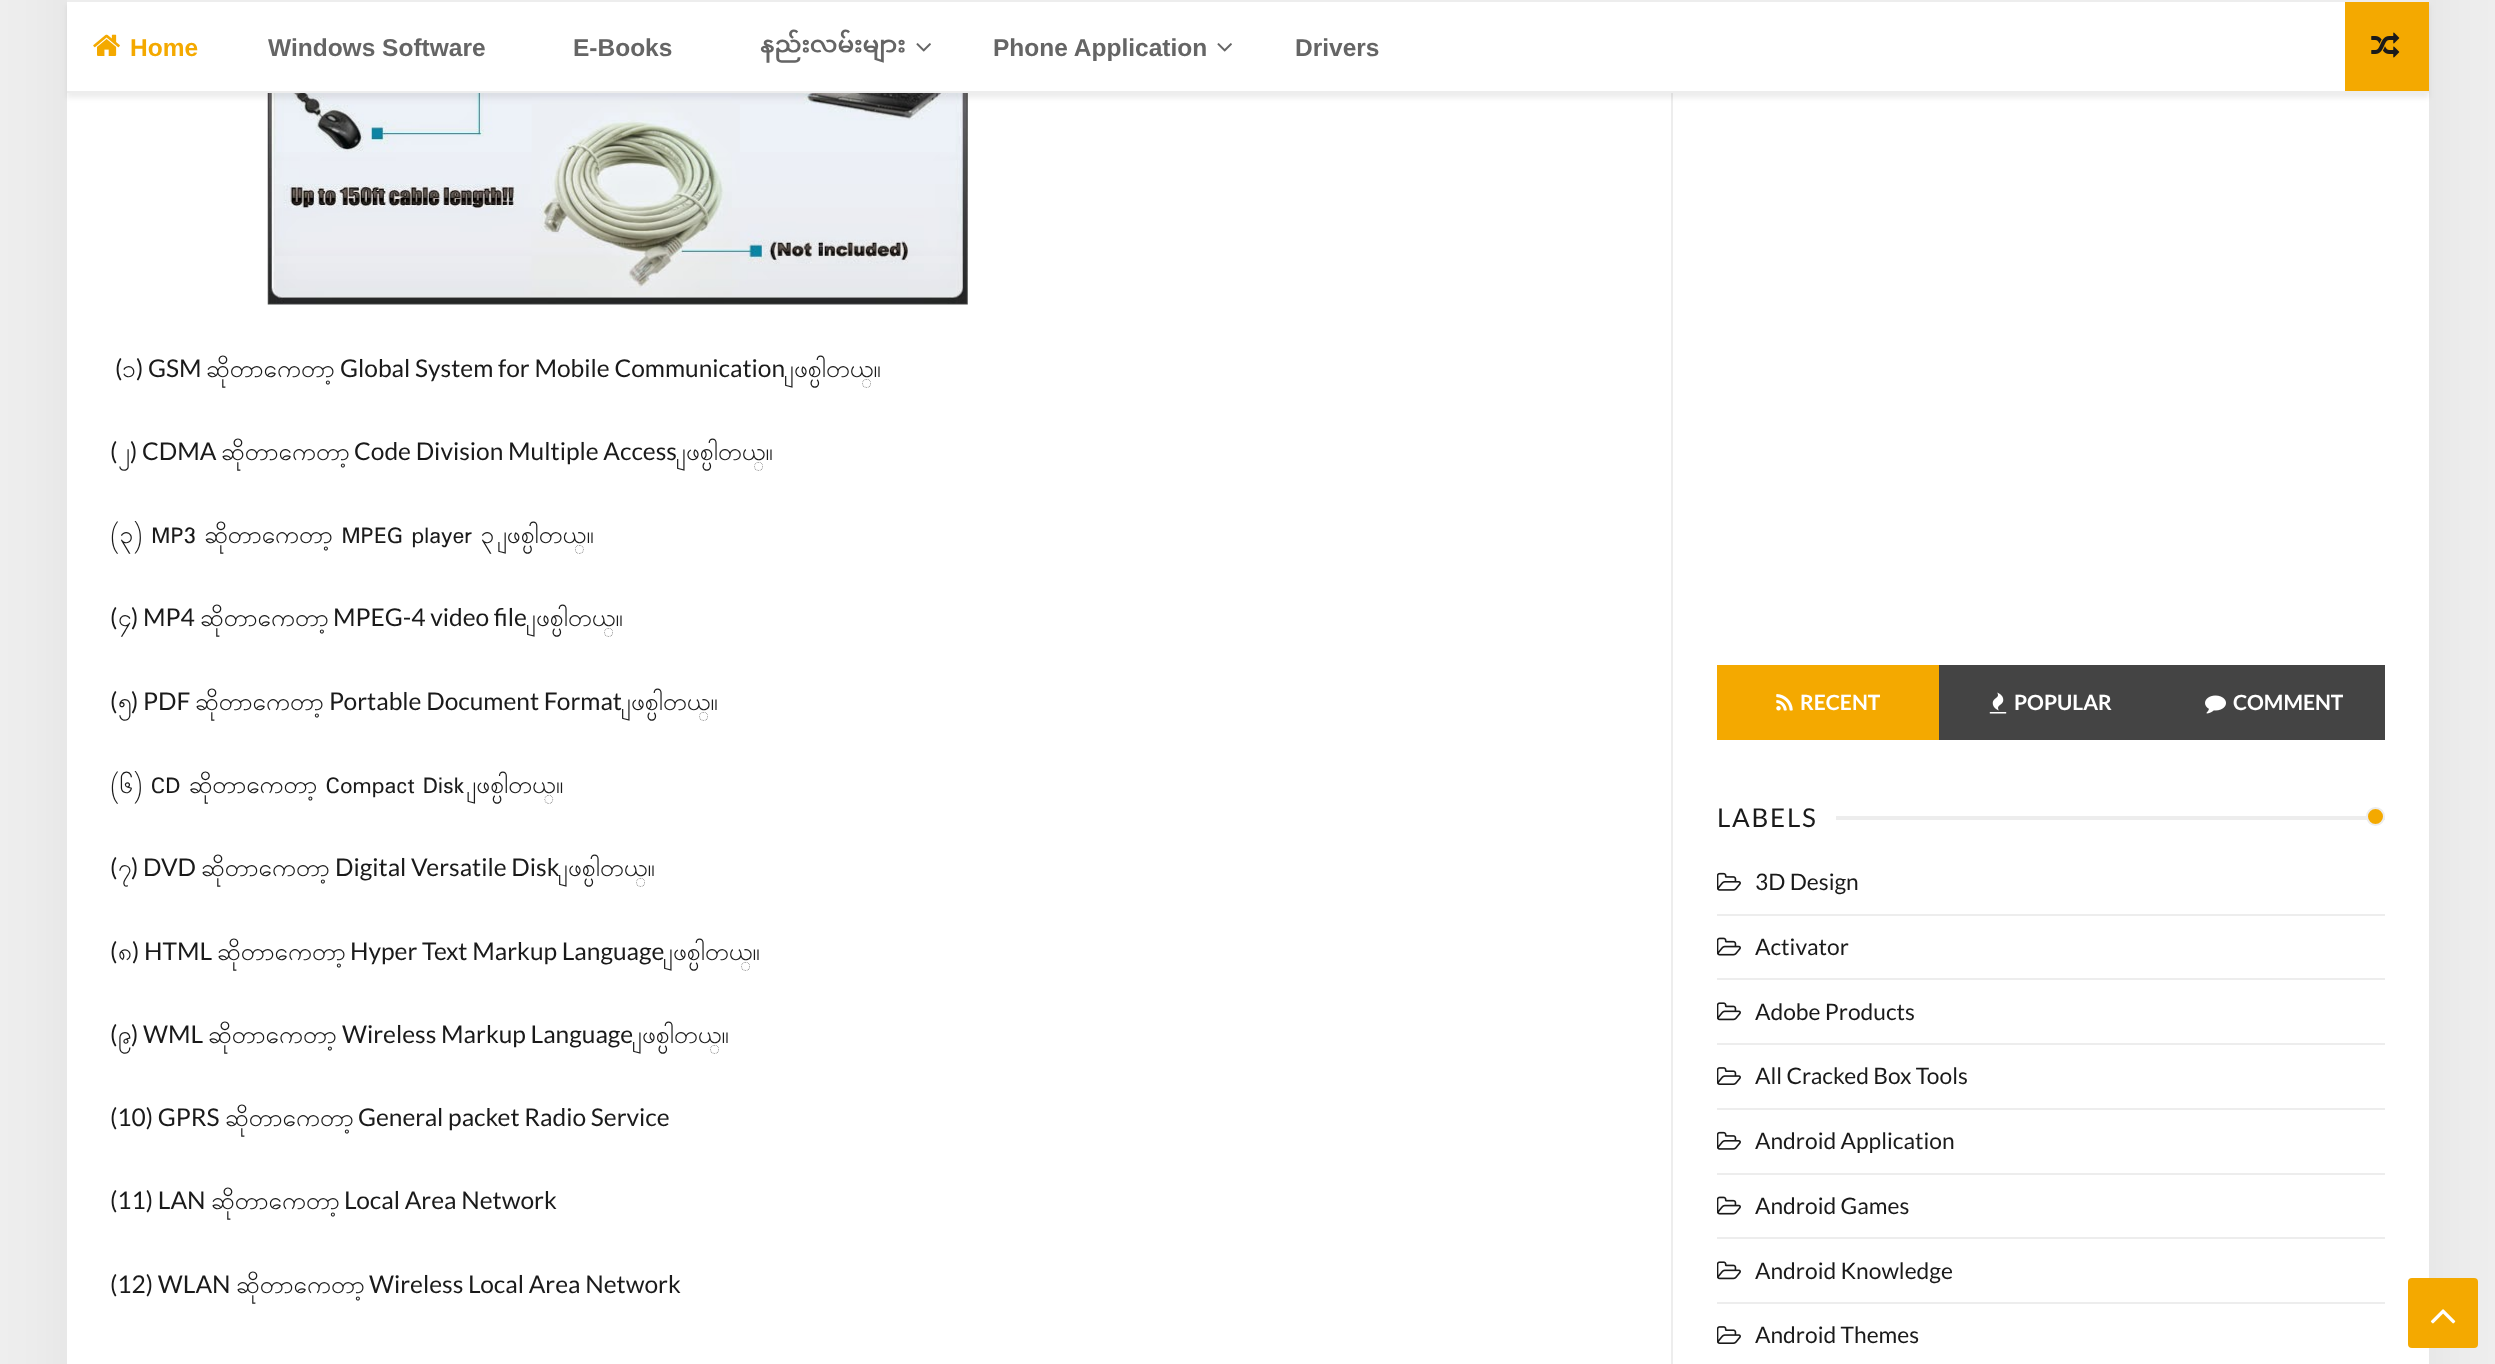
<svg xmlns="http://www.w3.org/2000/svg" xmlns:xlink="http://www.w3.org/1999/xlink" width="2495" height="1364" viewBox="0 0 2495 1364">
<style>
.cls-1{font:bold 24.5px Liberation Sans;fill:#f4a900}
.cls-2{font:bold 24.5px Liberation Sans;fill:#656565}
.cls-3{font:bold 24.5px Noto Sans Myanmar UI;fill:#656565}
.cls-4{font:24.5px Lato;fill:#1a1a1a}
.cls-5{font:24.5px Padauk;fill:#1a1a1a}
.cls-6{font:bold 21px Lato;fill:#ffffff}
.cls-7{font:26px Lato;letter-spacing:1.75px;fill:#1a1a1a}
.cls-8{font:22.75px Lato;fill:#1a1a1a}
</style>
<rect width="100%" height="100%" fill="#eeeeee"/>
<rect fill="#000000" fill-opacity="0.05" filter="blur(35px)" x="67" y="-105" width="2362" height="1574"/>
<rect fill="#ffffff" x="67" y="93" width="2362" height="1271"/>
<rect fill="#ededed" x="1671" y="93" width="2" height="1271"/>
<image xlink:href="image3.png" x="267" y="93" width="701" height="212"/>
<rect fill="#000000" fill-opacity="0.07" filter="blur(2.5px)" x="67" y="5" width="2362" height="93"/>
<rect fill="#ffffff" x="67" y="2" width="2278" height="89"/>
<rect fill="#ededed" x="67" y="0" width="2362" height="2"/>
<rect fill="#ededed" x="67" y="91" width="2362" height="2"/>
<image xlink:href="image0.png" x="93" y="34" width="27" height="22"/>
<image xlink:href="image1.png" x="916" y="43" width="15" height="9"/>
<image xlink:href="image1.png" x="1217" y="43" width="15" height="9"/>
<rect fill="#f4a900" x="2345" y="2" width="84" height="89"/>
<image xlink:href="image2.png" x="2371" y="32" width="29" height="26"/>
<rect fill="#f4a900" x="1717" y="665" width="222" height="75"/>
<image xlink:href="image4.png" x="1776" y="694" width="17" height="17"/>
<rect fill="#444444" x="1939" y="665" width="446" height="75"/>
<image xlink:href="image5.png" x="1989" y="692" width="18" height="22"/>
<image xlink:href="image6.png" x="2205" y="695" width="21" height="19"/>
<rect fill="#ededed" x="1836" y="816" width="549" height="4"/>
<circle fill="#f4a900" stroke="#ededed" stroke-width="2" cx="2375.5" cy="816.5" r="8.5"/>
<rect fill="#ededed" x="1717" y="914" width="668" height="2"/>
<image xlink:href="image7.png" x="1717" y="872" width="24" height="19"/>
<rect fill="#ededed" x="1717" y="978" width="668" height="2"/>
<image xlink:href="image8.png" x="1717" y="937" width="24" height="19"/>
<rect fill="#ededed" x="1717" y="1043" width="668" height="2"/>
<image xlink:href="image9.png" x="1717" y="1002" width="24" height="19"/>
<rect fill="#ededed" x="1717" y="1108" width="668" height="2"/>
<image xlink:href="image10.png" x="1717" y="1067" width="24" height="18"/>
<rect fill="#ededed" x="1717" y="1173" width="668" height="2"/>
<image xlink:href="image7.png" x="1717" y="1131" width="24" height="19"/>
<rect fill="#ededed" x="1717" y="1237" width="668" height="2"/>
<image xlink:href="image11.png" x="1717" y="1196" width="24" height="19"/>
<rect fill="#ededed" x="1717" y="1302" width="668" height="2"/>
<image xlink:href="image12.png" x="1717" y="1261" width="24" height="19"/>
<image xlink:href="image10.png" x="1717" y="1326" width="24" height="18"/>
<rect fill="#f4a900" x="2408" y="1278" width="70" height="70" rx="4"/>
<image xlink:href="image13.png" x="2430" y="1309" width="26" height="15"/>
<text class="cls-1" x="130" y="56">Home</text>
<text class="cls-2" x="268" y="56">Windows Software</text>
<text class="cls-2" x="573" y="56">E-Books</text>
<text class="cls-3" x="760" y="56">နည်းလမ်းများ</text>
<text class="cls-2" x="993" y="56">Phone Application</text>
<text class="cls-2" x="1295" y="56">Drivers</text>
<text class="cls-4" x="115" y="377">(</text>
<text class="cls-5" x="122" y="377">၁</text>
<text class="cls-4" x="136" y="377">) GSM</text>
<text class="cls-5" x="206" y="377">ဆိုတာကေတာ့</text>
<text class="cls-4" x="340" y="377">Global System for Mobile Communication</text>
<text class="cls-5" x="790" y="377">ျဖစ္ပါတယ္။</text>
<text class="cls-4" x="110" y="460">(</text>
<text class="cls-5" x="118" y="460">၂</text>
<text class="cls-4" x="130" y="460">) CDMA</text>
<text class="cls-5" x="221" y="460">ဆိုတာကေတာ့</text>
<text class="cls-4" x="354" y="460">Code Division Multiple Access</text>
<text class="cls-5" x="682" y="460">ျဖစ္ပါတယ္။</text>
<text class="cls-5" x="110" y="543" word-spacing="-0.5">(၃) MP3 ဆိုတာကေတာ့ MPEG player ၃ ျဖစ္ပါတယ္။</text>
<text class="cls-4" x="110" y="626">(</text>
<text class="cls-5" x="118" y="626">၄</text>
<text class="cls-4" x="131" y="626">) MP4</text>
<text class="cls-5" x="200" y="626">ဆိုတာကေတာ့</text>
<text class="cls-4" x="333" y="626">MPEG-4 video file</text>
<text class="cls-5" x="532" y="626">ျဖစ္ပါတယ္။</text>
<text class="cls-4" x="110" y="710">(</text>
<text class="cls-5" x="118" y="710">၅</text>
<text class="cls-4" x="131" y="710">) PDF</text>
<text class="cls-5" x="195" y="710">ဆိုတာကေတာ့</text>
<text class="cls-4" x="329" y="710">Portable Document Format</text>
<text class="cls-5" x="627" y="710">ျဖစ္ပါတယ္။</text>
<text class="cls-5" x="110" y="793" word-spacing="-1">(၆) CD ဆိုတာကေတာ့ Compact Disk ျဖစ္ပါတယ္။</text>
<text class="cls-4" x="110" y="876">(</text>
<text class="cls-5" x="118" y="876">၇</text>
<text class="cls-4" x="131" y="876">) DVD</text>
<text class="cls-5" x="201" y="876">ဆိုတာကေတာ့</text>
<text class="cls-4" x="335" y="876">Digital Versatile Disk</text>
<text class="cls-5" x="564" y="876">ျဖစ္ပါတယ္။</text>
<text class="cls-4" x="110" y="960">(</text>
<text class="cls-5" x="118" y="960">၈</text>
<text class="cls-4" x="132" y="960">) HTML</text>
<text class="cls-5" x="217" y="960">ဆိုတာကေတာ့</text>
<text class="cls-4" x="350" y="960">Hyper Text Markup Language</text>
<text class="cls-5" x="669" y="960">ျဖစ္ပါတယ္။</text>
<text class="cls-4" x="110" y="1043">(</text>
<text class="cls-5" x="118" y="1043">၉</text>
<text class="cls-4" x="131" y="1043">) WML</text>
<text class="cls-5" x="208" y="1043">ဆိုတာကေတာ့</text>
<text class="cls-4" x="342" y="1043">Wireless Markup Language</text>
<text class="cls-5" x="638" y="1043">ျဖစ္ပါတယ္။</text>
<text class="cls-4" x="110" y="1126">(10) GPRS</text>
<text class="cls-5" x="225" y="1126">ဆိုတာကေတာ့</text>
<text class="cls-4" x="358" y="1126">General packet Radio Service</text>
<text class="cls-4" x="110" y="1209">(11) LAN</text>
<text class="cls-5" x="211" y="1209">ဆိုတာကေတာ့</text>
<text class="cls-4" x="344" y="1209">Local Area Network</text>
<text class="cls-4" x="110" y="1293">(12) WLAN</text>
<text class="cls-5" x="236" y="1293">ဆိုတာကေတာ့</text>
<text class="cls-4" x="369" y="1293">Wireless Local Area Network</text>
<text class="cls-6" x="1800" y="710">RECENT</text>
<text class="cls-6" x="2014" y="710">POPULAR</text>
<text class="cls-6" x="2233" y="710">COMMENT</text>
<text class="cls-7" x="1717" y="827">LABELS</text>
<text class="cls-8" x="1755" y="890">3D Design</text>
<text class="cls-8" x="1755" y="955">Activator</text>
<text class="cls-8" x="1755" y="1020">Adobe Products</text>
<text class="cls-8" x="1755" y="1084">All Cracked Box Tools</text>
<text class="cls-8" x="1755" y="1149">Android Application</text>
<text class="cls-8" x="1755" y="1214">Android Games</text>
<text class="cls-8" x="1755" y="1279">Android Knowledge</text>
<text class="cls-8" x="1755" y="1343">Android Themes</text>
</svg>
